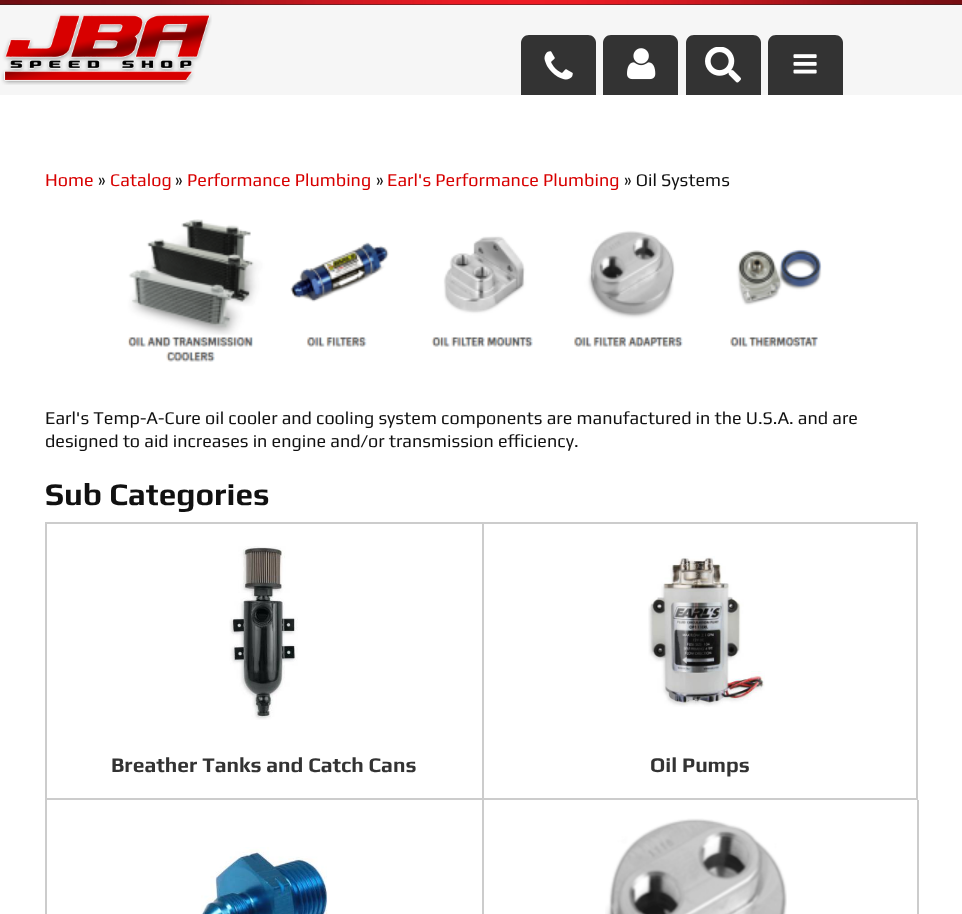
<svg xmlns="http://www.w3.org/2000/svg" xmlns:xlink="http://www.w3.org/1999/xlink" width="962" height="914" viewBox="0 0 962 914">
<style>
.cls-1{font:18px Play;fill:#d80000}
.cls-2{font:18px Play;fill:#111111}
.cls-3{font:bold 31.5px Play;fill:#111111}
.cls-4{font:bold 21px Play;fill:#333333}
</style>
<rect width="100%" height="100%" fill="#222222"/>
<image xlink:href="image0.png" x="0" y="0" width="962" height="5"/>
<rect fill="#f6f6f6" x="0" y="5" width="962" height="90"/>
<image xlink:href="image1.png" x="1" y="13" width="211" height="72"/>
<path fill="#333333" d="M529 35H588C592.5 35 596 38.5 596 43V95H521V43C521 38.5 524.5 35 529 35Z"/>
<image xlink:href="image2.png" x="544" y="51" width="29" height="29"/>
<path fill="#333333" d="M611 35H670C674.5 35 678 38.5 678 43V95H603V43C603 38.5 606.5 35 611 35Z"/>
<image xlink:href="image3.png" x="627" y="48" width="29" height="32"/>
<path fill="#333333" d="M694 35H753C757.5 35 761 38.5 761 43V95H686V43C686 38.5 689.5 35 694 35Z"/>
<image xlink:href="image4.png" x="705" y="47" width="36" height="36"/>
<path fill="#333333" d="M776 35H835C839.5 35 843 38.5 843 43V95H768V43C768 38.5 771.5 35 776 35Z"/>
<image xlink:href="image5.png" x="793" y="54" width="24" height="20"/>
<rect fill="#ffffff" x="0" y="95" width="962" height="819"/>
<image xlink:href="image6.png" x="127" y="219" width="695" height="143"/>
<rect fill="#cccccc" x="45" y="522" width="437" height="2"/>
<rect fill="#cccccc" x="45" y="798" width="437" height="2"/>
<rect fill="#cccccc" x="45" y="522" width="2" height="392"/>
<image xlink:href="image7.png" x="229" y="546" width="69" height="174"/>
<rect fill="none" stroke="#cccccc" stroke-width="2" x="483" y="523" width="434" height="276"/>
<image xlink:href="image8.png" x="648" y="556" width="117" height="151"/>
<image xlink:href="image9.png" x="201" y="847" width="127" height="67"/>
<rect fill="#cccccc" x="917" y="800" width="2" height="114"/>
<rect fill="#cccccc" x="482" y="800" width="2" height="114"/>
<image xlink:href="image10.png" x="605" y="818" width="182" height="96"/>
<text class="cls-1" x="45" y="186">Home</text>
<text class="cls-2" x="98" y="186">»</text>
<text class="cls-1" x="110" y="186">Catalog</text>
<text class="cls-2" x="175" y="186">»</text>
<text class="cls-1" x="187" y="186">Performance Plumbing</text>
<text class="cls-2" x="376" y="186">»</text>
<text class="cls-1" x="387" y="186">Earl's Performance Plumbing</text>
<text class="cls-2" x="624" y="186">» Oil Systems</text>
<text class="cls-2"><tspan x="45" y="424">Earl's Temp-A-Cure oil cooler and cooling system components are manufactured in the U.S.A. and are</tspan><tspan x="45" y="447">designed to aid increases in engine and/or transmission efficiency.</tspan></text>
<text class="cls-3" x="45" y="505">Sub Categories</text>
<text class="cls-4" x="111" y="772">Breather Tanks and Catch Cans</text>
<text class="cls-4" x="650" y="772">Oil Pumps</text>
</svg>
